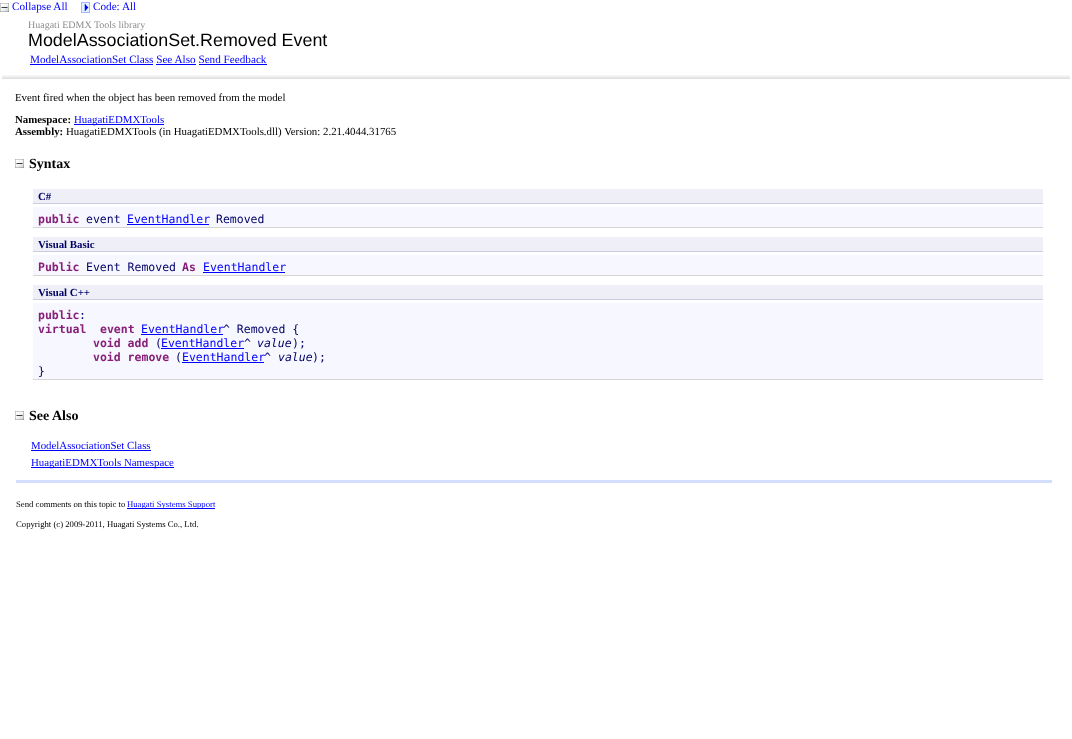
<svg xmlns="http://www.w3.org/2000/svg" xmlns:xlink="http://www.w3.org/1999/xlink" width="1072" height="739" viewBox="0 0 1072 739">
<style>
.cls-1{font:11.2px Liberation Serif;fill:#0000ff}
.cls-2{font:10px Liberation Serif;fill:#8c8c8c}
.cls-3{font:17.9px Liberation Sans;fill:#000000}
.cls-4{font:10.85px Liberation Serif;fill:#000000}
.cls-5{font:bold 10.85px Liberation Serif;fill:#000000}
.cls-6{font:10.85px Liberation Serif;fill:#0000ff}
.cls-7{font:bold 14px Liberation Serif;fill:#000000}
.cls-8{font:bold 10.85px Liberation Serif;fill:#000066}
.cls-9{font:bold 11.5px DejaVu Sans Mono;fill:#871f78}
.cls-10{font:11.5px DejaVu Sans Mono;fill:#000066}
.cls-11{font:11.5px DejaVu Sans Mono;fill:#0000ff}
.cls-12{font:italic 11.5px DejaVu Sans Mono;fill:#000066}
.cls-13{font:8.7px Liberation Serif;fill:#000000}
.cls-14{font:8.7px Liberation Serif;fill:#0000ff}
</style>
<rect width="100%" height="100%" fill="#ffffff"/>
<image xlink:href="image0.png" x="0" y="3" width="9" height="9"/>
<image xlink:href="image1.png" x="81" y="2" width="9" height="11"/>
<rect fill="#0000ff" x="30" y="64" width="123" height="1"/>
<rect fill="#0000ff" x="156" y="64" width="40" height="1"/>
<rect fill="#0000ff" x="199" y="64" width="68" height="1"/>
<image xlink:href="image2.png" x="2" y="75" width="1068" height="4"/>
<rect fill="#0000ff" x="74" y="124" width="90" height="1"/>
<image xlink:href="image0.png" x="15" y="159" width="9" height="9"/>
<rect fill="#efeff7" x="33" y="189" width="1010" height="14"/>
<rect fill="#c8cdde" x="33" y="203" width="1010" height="1"/>
<rect fill="#f7f7ff" x="33" y="207" width="1010" height="20"/>
<rect fill="#d5d5d3" x="33" y="227" width="1010" height="1"/>
<rect fill="#0000ff" x="127" y="224" width="82" height="1"/>
<rect fill="#efeff7" x="33" y="237" width="1010" height="14"/>
<rect fill="#c8cdde" x="33" y="251" width="1010" height="1"/>
<rect fill="#f7f7ff" x="33" y="255" width="1010" height="20"/>
<rect fill="#d5d5d3" x="33" y="275" width="1010" height="1"/>
<rect fill="#0000ff" x="203" y="272" width="82" height="1"/>
<rect fill="#efeff7" x="33" y="285" width="1010" height="14"/>
<rect fill="#c8cdde" x="33" y="299" width="1010" height="1"/>
<rect fill="#f7f7ff" x="33" y="303" width="1010" height="76"/>
<rect fill="#d5d5d3" x="33" y="379" width="1010" height="1"/>
<rect fill="#0000ff" x="141" y="334" width="82" height="1"/>
<rect fill="#0000ff" x="161" y="348" width="83" height="1"/>
<rect fill="#0000ff" x="182" y="362" width="82" height="1"/>
<image xlink:href="image0.png" x="15" y="411" width="9" height="9"/>
<rect fill="#0000ff" x="31" y="450" width="120" height="1"/>
<rect fill="#0000ff" x="31" y="467" width="143" height="1"/>
<rect fill="#d4dfff" x="16" y="480" width="1036" height="3"/>
<rect fill="#0000ff" x="127" y="508" width="88" height="1"/>
<text class="cls-1" x="12" y="10">Collapse All</text>
<text class="cls-1" x="93" y="10">Code: All</text>
<text class="cls-2" x="28" y="28">Huagati EDMX Tools library</text>
<text class="cls-3" x="28" y="46">ModelAssociationSet.Removed Event</text>
<text class="cls-1" x="30" y="63">ModelAssociationSet Class See Also Send Feedback</text>
<text class="cls-4" x="15" y="101">Event fired when the object has been removed from the model</text>
<text class="cls-5" x="15" y="123">Namespace:</text>
<text class="cls-6" x="74" y="123">HuagatiEDMXTools</text>
<text class="cls-5" x="15" y="135">Assembly:</text>
<text class="cls-4" x="66" y="135">HuagatiEDMXTools (in HuagatiEDMXTools.dll) Version: 2.21.4044.31765</text>
<text class="cls-7" x="29" y="168">Syntax</text>
<text class="cls-8" x="38" y="200">C#</text>
<text class="cls-9" x="38" y="223">public</text>
<text class="cls-10" x="86" y="223">event</text>
<text class="cls-11" x="127" y="223">EventHandler</text>
<text class="cls-10" x="216" y="223">Removed</text>
<text class="cls-8" x="38" y="248">Visual Basic</text>
<text class="cls-9" x="38" y="271">Public</text>
<text class="cls-10" x="86" y="271">Event Removed</text>
<text class="cls-9" x="182" y="271">As</text>
<text class="cls-11" x="203" y="271">EventHandler</text>
<text class="cls-8" x="38" y="296">Visual C++</text>
<text class="cls-9" x="38" y="319">public</text>
<text class="cls-10" x="79" y="319">:</text>
<text class="cls-9" x="38" y="333">virtual</text>
<text class="cls-9" x="100" y="333">event</text>
<text class="cls-11" x="141" y="333">EventHandler</text>
<text class="cls-10" x="223" y="333">^ Removed {</text>
<text class="cls-9" x="93" y="347">void add</text>
<text class="cls-10" x="155" y="347">(</text>
<text class="cls-11" x="161" y="347">EventHandler</text>
<text class="cls-10" x="244" y="347">^</text>
<text class="cls-12" x="257" y="347">value</text>
<text class="cls-10" x="292" y="347">);</text>
<text class="cls-9" x="93" y="361">void remove</text>
<text class="cls-10" x="175" y="361">(</text>
<text class="cls-11" x="182" y="361">EventHandler</text>
<text class="cls-10" x="264" y="361">^</text>
<text class="cls-12" x="278" y="361">value</text>
<text class="cls-10" x="312" y="361">);</text>
<text class="cls-10" x="38" y="375">}</text>
<text class="cls-7" x="29" y="420">See Also</text>
<text class="cls-6"><tspan x="31" y="449">ModelAssociationSet Class</tspan><tspan x="31" y="466">HuagatiEDMXTools Namespace</tspan></text>
<text class="cls-13" x="16" y="507">Send comments on this topic to</text>
<text class="cls-14" x="127" y="507">Huagati Systems Support</text>
<text class="cls-13" x="16" y="527">Copyright (c) 2009-2011, Huagati Systems Co., Ltd.</text>
</svg>
